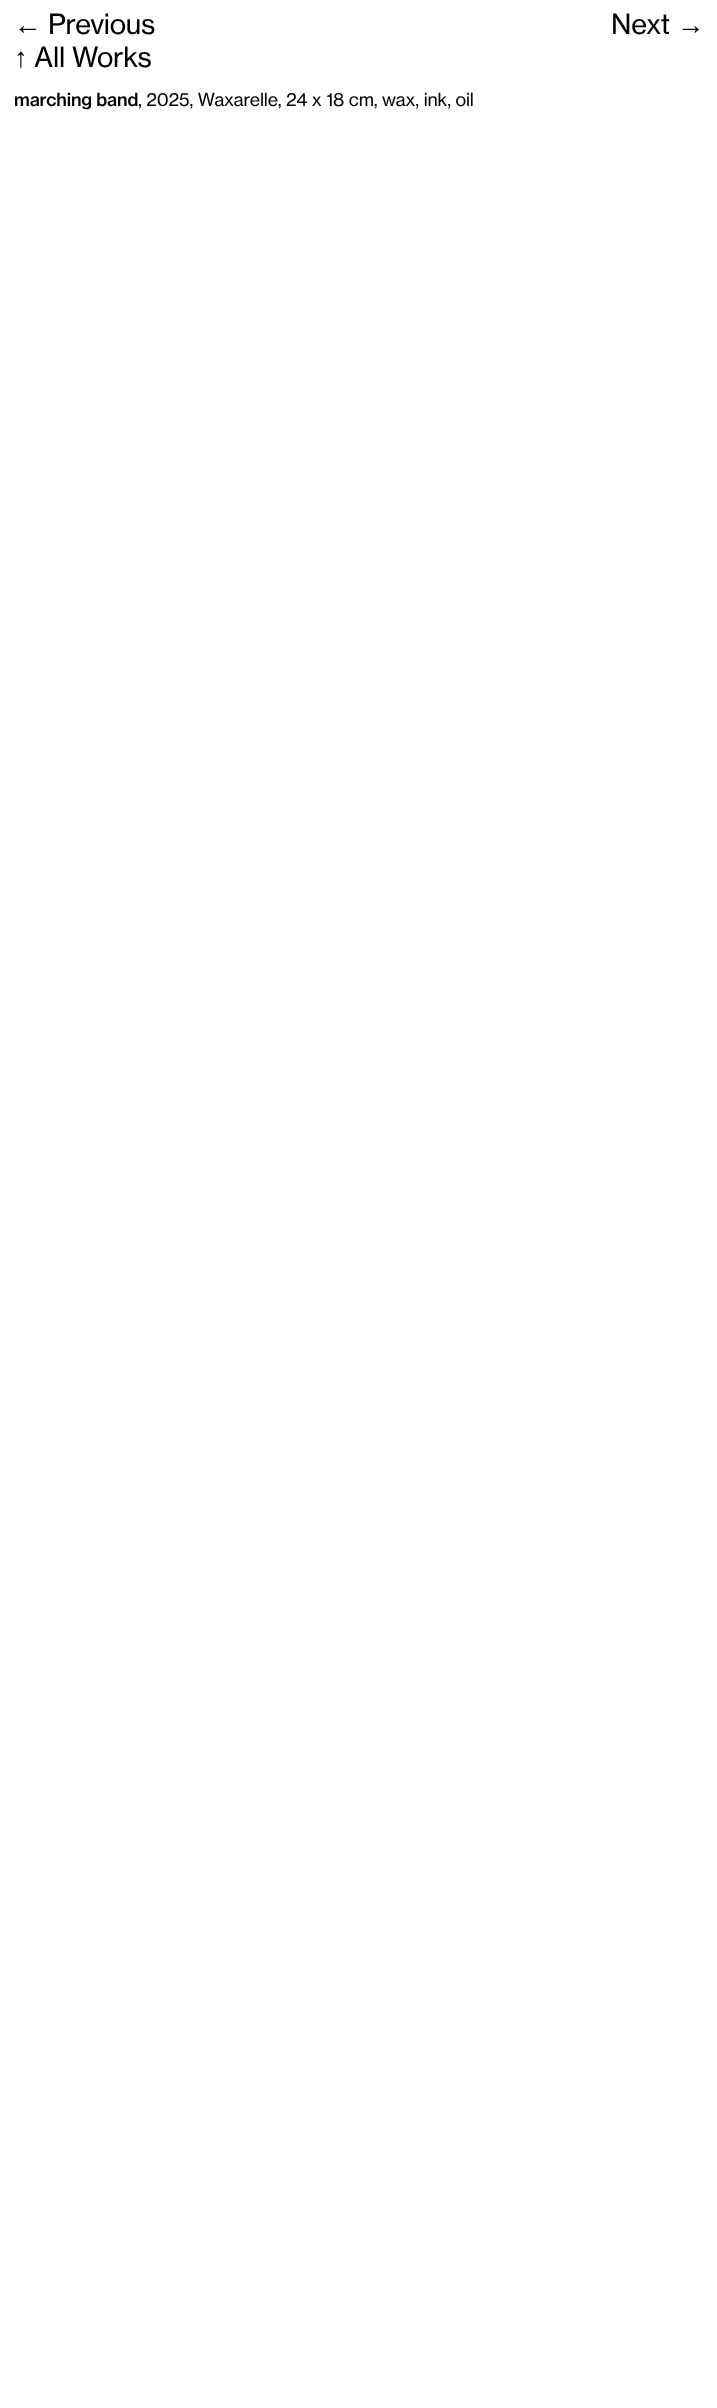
<svg xmlns="http://www.w3.org/2000/svg" xmlns:xlink="http://www.w3.org/1999/xlink" width="717" height="2408" viewBox="0 0 717 2408">
<style>
.cls-1{font:27.5px Liberation Serif;letter-spacing:-0.25px;fill:#000000}
.cls-2{font:27.5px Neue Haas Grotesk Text;letter-spacing:-0.25px;fill:#000000}
.cls-3{font:500 17.9px Neue Haas Grotesk Text;letter-spacing:-0.15px;fill:#000000}
.cls-4{font:17.9px Neue Haas Grotesk Text;letter-spacing:-0.15px;fill:#000000}
</style>
<rect width="100%" height="100%" fill="#ffffff"/>
<text class="cls-1" x="14" y="34">←</text>
<text class="cls-2" x="48" y="34">Previous</text>
<text class="cls-2" x="611" y="34">Next</text>
<text class="cls-1" x="677" y="34">→</text>
<text class="cls-1" x="14" y="67">↑</text>
<text class="cls-2" x="34" y="67">All Works</text>
<text class="cls-3" x="14" y="106">marching band</text>
<text class="cls-4" x="138" y="106">, 2025, Waxarelle, 24 x 18 cm, wax, ink, oil</text>
</svg>
